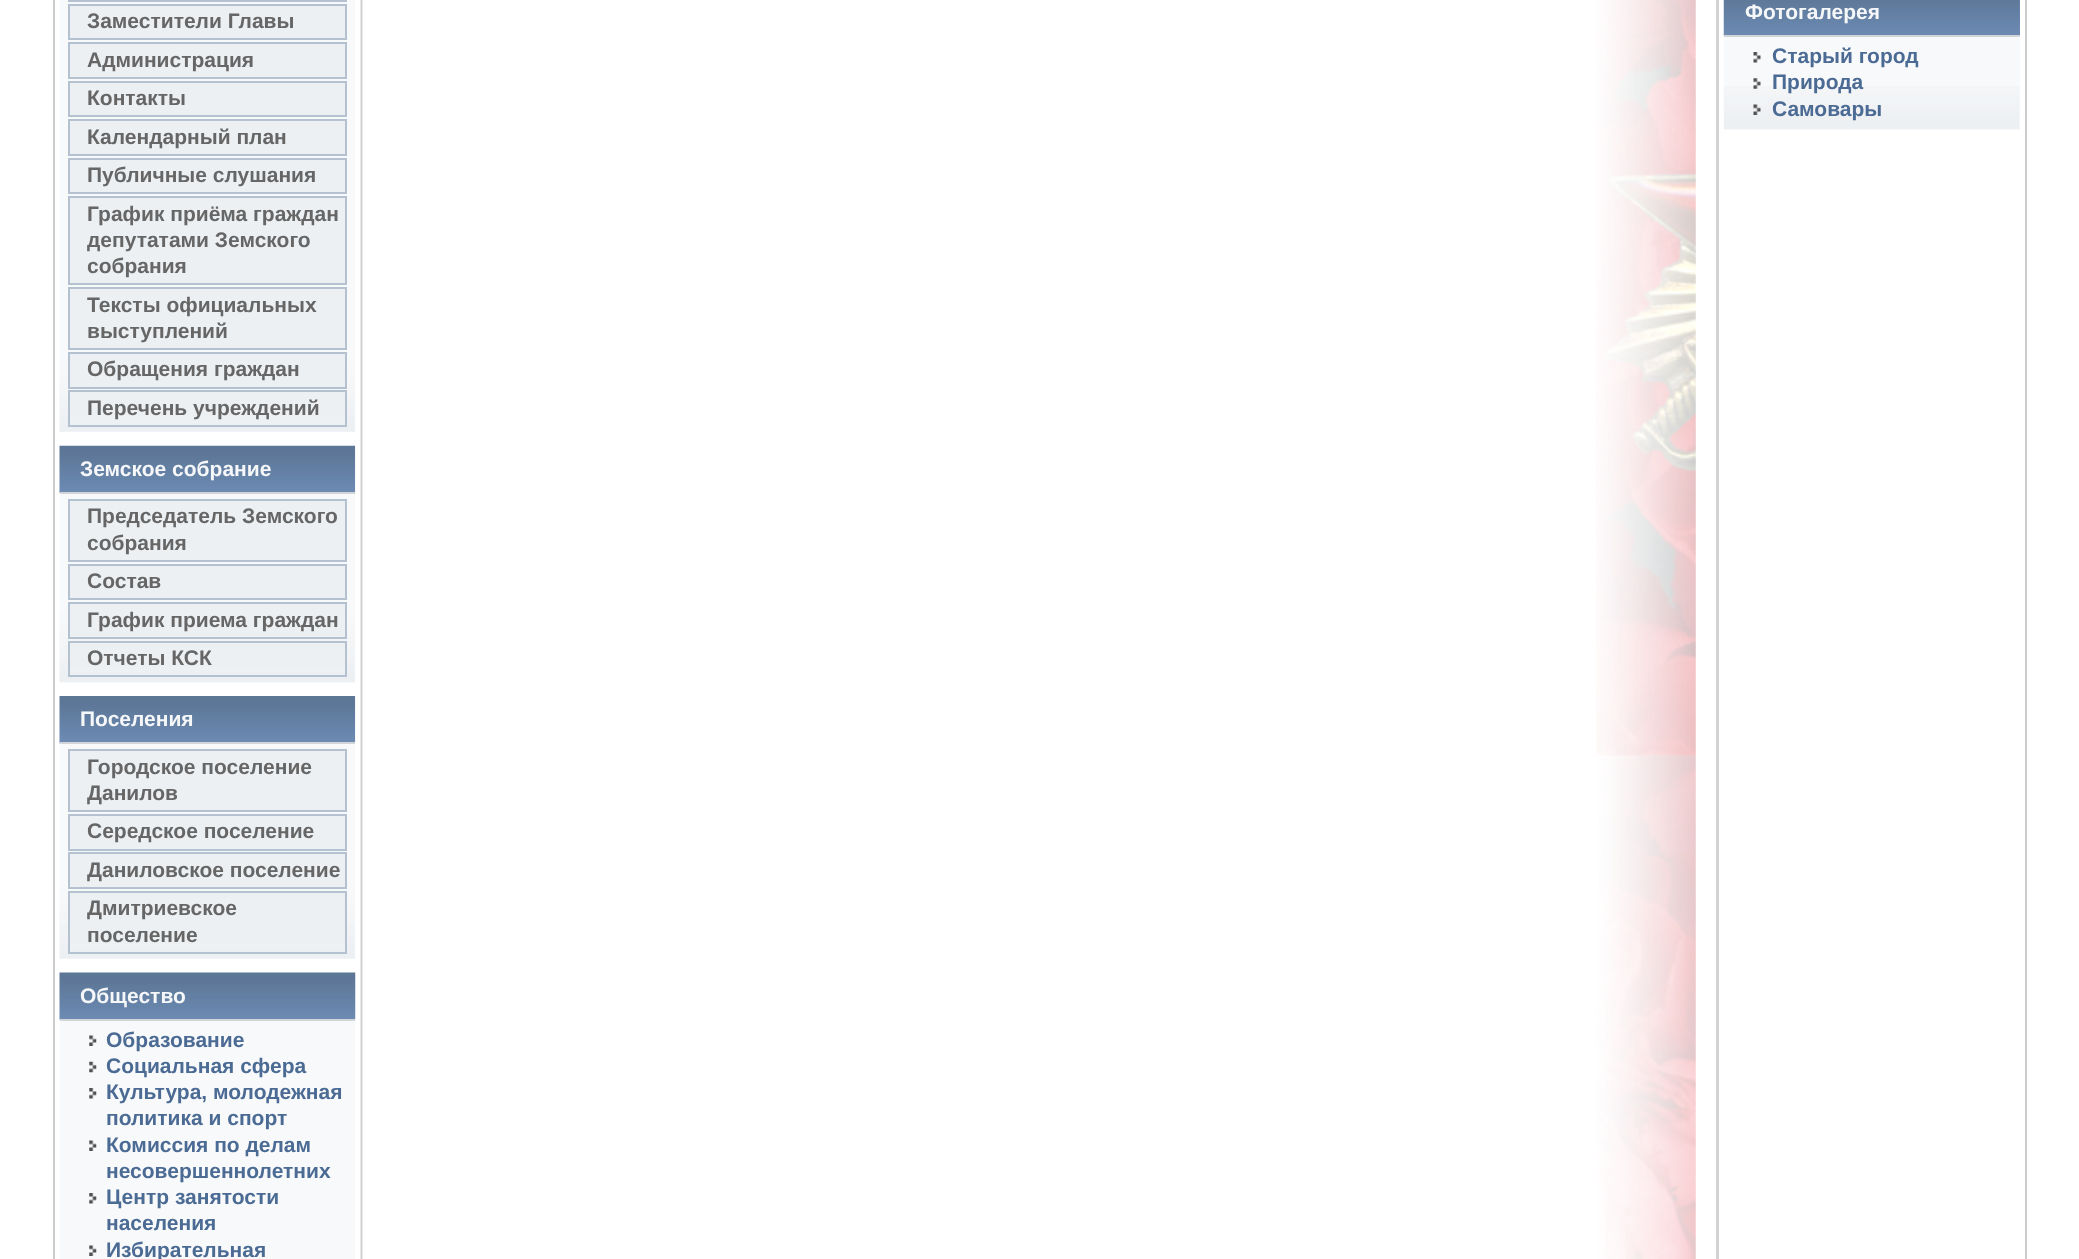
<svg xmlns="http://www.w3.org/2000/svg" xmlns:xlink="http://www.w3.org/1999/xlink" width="2079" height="1259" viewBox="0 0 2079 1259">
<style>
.cls-1{font:bold 21px Liberation Sans;fill:#666666}
.cls-2{font:bold 21px Liberation Sans;fill:#f6f7f9}
.cls-3{font:bold 21px Liberation Sans;fill:#4b6b94}
</style>
<rect width="100%" height="100%" fill="#ffffff"/>
<rect fill="#cccccc" x="53" y="0" width="2" height="1259"/>
<rect fill="#f8f9fa" x="60" y="0" width="295" height="432"/>
<image xlink:href="image0.png" x="59" y="359" width="297" height="73"/>
<rect fill="none" stroke="#b4c1d1" stroke-width="2" x="69" y="-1" width="277" height="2"/>
<rect fill="#ecf0f3" stroke="#b4c1d1" stroke-width="2" x="69" y="5" width="277" height="34"/>
<rect fill="#ecf0f3" stroke="#b4c1d1" stroke-width="2" x="69" y="43" width="277" height="35"/>
<rect fill="#ecf0f3" stroke="#b4c1d1" stroke-width="2" x="69" y="82" width="277" height="34"/>
<rect fill="#ecf0f3" stroke="#b4c1d1" stroke-width="2" x="69" y="120" width="277" height="35"/>
<rect fill="#ecf0f3" stroke="#b4c1d1" stroke-width="2" x="69" y="159" width="277" height="34"/>
<rect fill="#ecf0f3" stroke="#b4c1d1" stroke-width="2" x="69" y="197" width="277" height="87"/>
<rect fill="#ecf0f3" stroke="#b4c1d1" stroke-width="2" x="69" y="288" width="277" height="61"/>
<rect fill="#ecf0f3" stroke="#b4c1d1" stroke-width="2" x="69" y="353" width="277" height="35"/>
<rect fill="#ecf0f3" x="70" y="392" width="275" height="25"/>
<rect fill="none" stroke="#b4c1d1" stroke-width="2" x="69" y="391" width="277" height="35"/>
<rect fill="#f8f9fa" x="60" y="494" width="295" height="189"/>
<image xlink:href="image1.png" x="59" y="609" width="297" height="73"/>
<image xlink:href="image2.png" x="59" y="445" width="297" height="48"/>
<rect fill="#d2d5d8" x="60" y="492" width="295" height="2"/>
<rect fill="#ecf0f3" stroke="#b4c1d1" stroke-width="2" x="69" y="500" width="277" height="61"/>
<rect fill="#ecf0f3" stroke="#b4c1d1" stroke-width="2" x="69" y="565" width="277" height="34"/>
<rect fill="#ecf0f3" stroke="#b4c1d1" stroke-width="2" x="69" y="603" width="277" height="35"/>
<rect fill="#ecf0f3" x="70" y="643" width="275" height="24"/>
<rect fill="none" stroke="#b4c1d1" stroke-width="2" x="69" y="642" width="277" height="34"/>
<rect fill="#f8f9fa" x="60" y="744" width="295" height="215"/>
<image xlink:href="image3.png" x="59" y="885" width="297" height="74"/>
<image xlink:href="image4.png" x="59" y="696" width="297" height="48"/>
<rect fill="#d2d5d8" x="60" y="742" width="295" height="2"/>
<rect fill="#ecf0f3" stroke="#b4c1d1" stroke-width="2" x="69" y="750" width="277" height="61"/>
<rect fill="#ecf0f3" stroke="#b4c1d1" stroke-width="2" x="69" y="815" width="277" height="35"/>
<rect fill="#ecf0f3" stroke="#b4c1d1" stroke-width="2" x="69" y="853" width="277" height="35"/>
<rect fill="#ecf0f3" x="70" y="893" width="275" height="51"/>
<rect fill="none" stroke="#b4c1d1" stroke-width="2" x="69" y="892" width="277" height="61"/>
<rect fill="#f8f9fa" x="60" y="1021" width="296" height="238"/>
<image xlink:href="image5.png" x="59" y="972" width="297" height="48"/>
<rect fill="#d2d5d8" x="60" y="1019" width="301" height="2"/>
<image xlink:href="image6.png" x="89" y="1035" width="8" height="11"/>
<image xlink:href="image7.png" x="89" y="1061" width="8" height="12"/>
<image xlink:href="image8.png" x="89" y="1088" width="8" height="11"/>
<image xlink:href="image6.png" x="89" y="1140" width="8" height="11"/>
<image xlink:href="image8.png" x="89" y="1193" width="8" height="11"/>
<image xlink:href="image6.png" x="89" y="1245" width="8" height="11"/>
<image xlink:href="image9.png" x="355" y="0" width="8" height="1259"/>
<image xlink:href="image10.png" x="1596" y="0" width="100" height="1259"/>
<rect fill="#d2d2d2" x="1716" y="0" width="3" height="1259"/>
<rect fill="#cccccc" x="2025" y="0" width="2" height="1259"/>
<rect fill="#f8f9fa" x="1724" y="37" width="296" height="93"/>
<image xlink:href="image11.png" x="1723" y="86" width="297" height="43"/>
<rect fill="#6d8db5" x="2019" y="0" width="1" height="35"/>
<image xlink:href="image12.png" x="1723" y="0" width="297" height="37"/>
<rect fill="#d2d5d8" x="1724" y="35" width="296" height="2"/>
<image xlink:href="image13.png" x="1753" y="52" width="8" height="11"/>
<image xlink:href="image14.png" x="1753" y="78" width="8" height="11"/>
<image xlink:href="image15.png" x="1753" y="104" width="8" height="11"/>
<text class="cls-1"><tspan x="87" y="28">Заместители Главы</tspan><tspan x="87" y="67">Администрация</tspan><tspan x="87" y="105">Контакты</tspan><tspan x="87" y="144">Календарный план</tspan><tspan x="87" y="182">Публичные слушания</tspan><tspan x="87" y="221">График приёма граждан</tspan><tspan x="87" y="247">депутатами Земского</tspan><tspan x="87" y="273">собрания</tspan><tspan x="87" y="312">Тексты официальных</tspan><tspan x="87" y="338">выступлений</tspan><tspan x="87" y="376">Обращения граждан</tspan><tspan x="87" y="415">Перечень учреждений</tspan></text>
<text class="cls-2" x="80" y="476">Земское собрание</text>
<text class="cls-1"><tspan x="87" y="523">Председатель Земского</tspan><tspan x="87" y="550">собрания</tspan><tspan x="87" y="588">Состав</tspan><tspan x="87" y="627">График приема граждан</tspan><tspan x="87" y="665">Отчеты КСК</tspan></text>
<text class="cls-2" x="80" y="726">Поселения</text>
<text class="cls-1"><tspan x="87" y="774">Городское поселение</tspan><tspan x="87" y="800">Данилов</tspan><tspan x="87" y="838">Середское поселение</tspan><tspan x="87" y="877">Даниловское поселение</tspan><tspan x="87" y="915">Дмитриевское</tspan><tspan x="87" y="942">поселение</tspan></text>
<text class="cls-2" x="80" y="1003">Общество</text>
<text class="cls-3"><tspan x="106" y="1047">Образование</tspan><tspan x="106" y="1073">Социальная сфера</tspan><tspan x="106" y="1099">Культура, молодежная</tspan><tspan x="106" y="1125">политика и спорт</tspan><tspan x="106" y="1152">Комиссия по делам</tspan><tspan x="106" y="1178">несовершеннолетних</tspan><tspan x="106" y="1204">Центр занятости</tspan><tspan x="106" y="1230">населения</tspan><tspan x="106" y="1257">Избирательная</tspan></text>
<text class="cls-2" x="1745" y="19">Фотогалерея</text>
<text class="cls-3"><tspan x="1772" y="63">Старый город</tspan><tspan x="1772" y="89">Природа</tspan><tspan x="1772" y="116">Самовары</tspan></text>
</svg>
